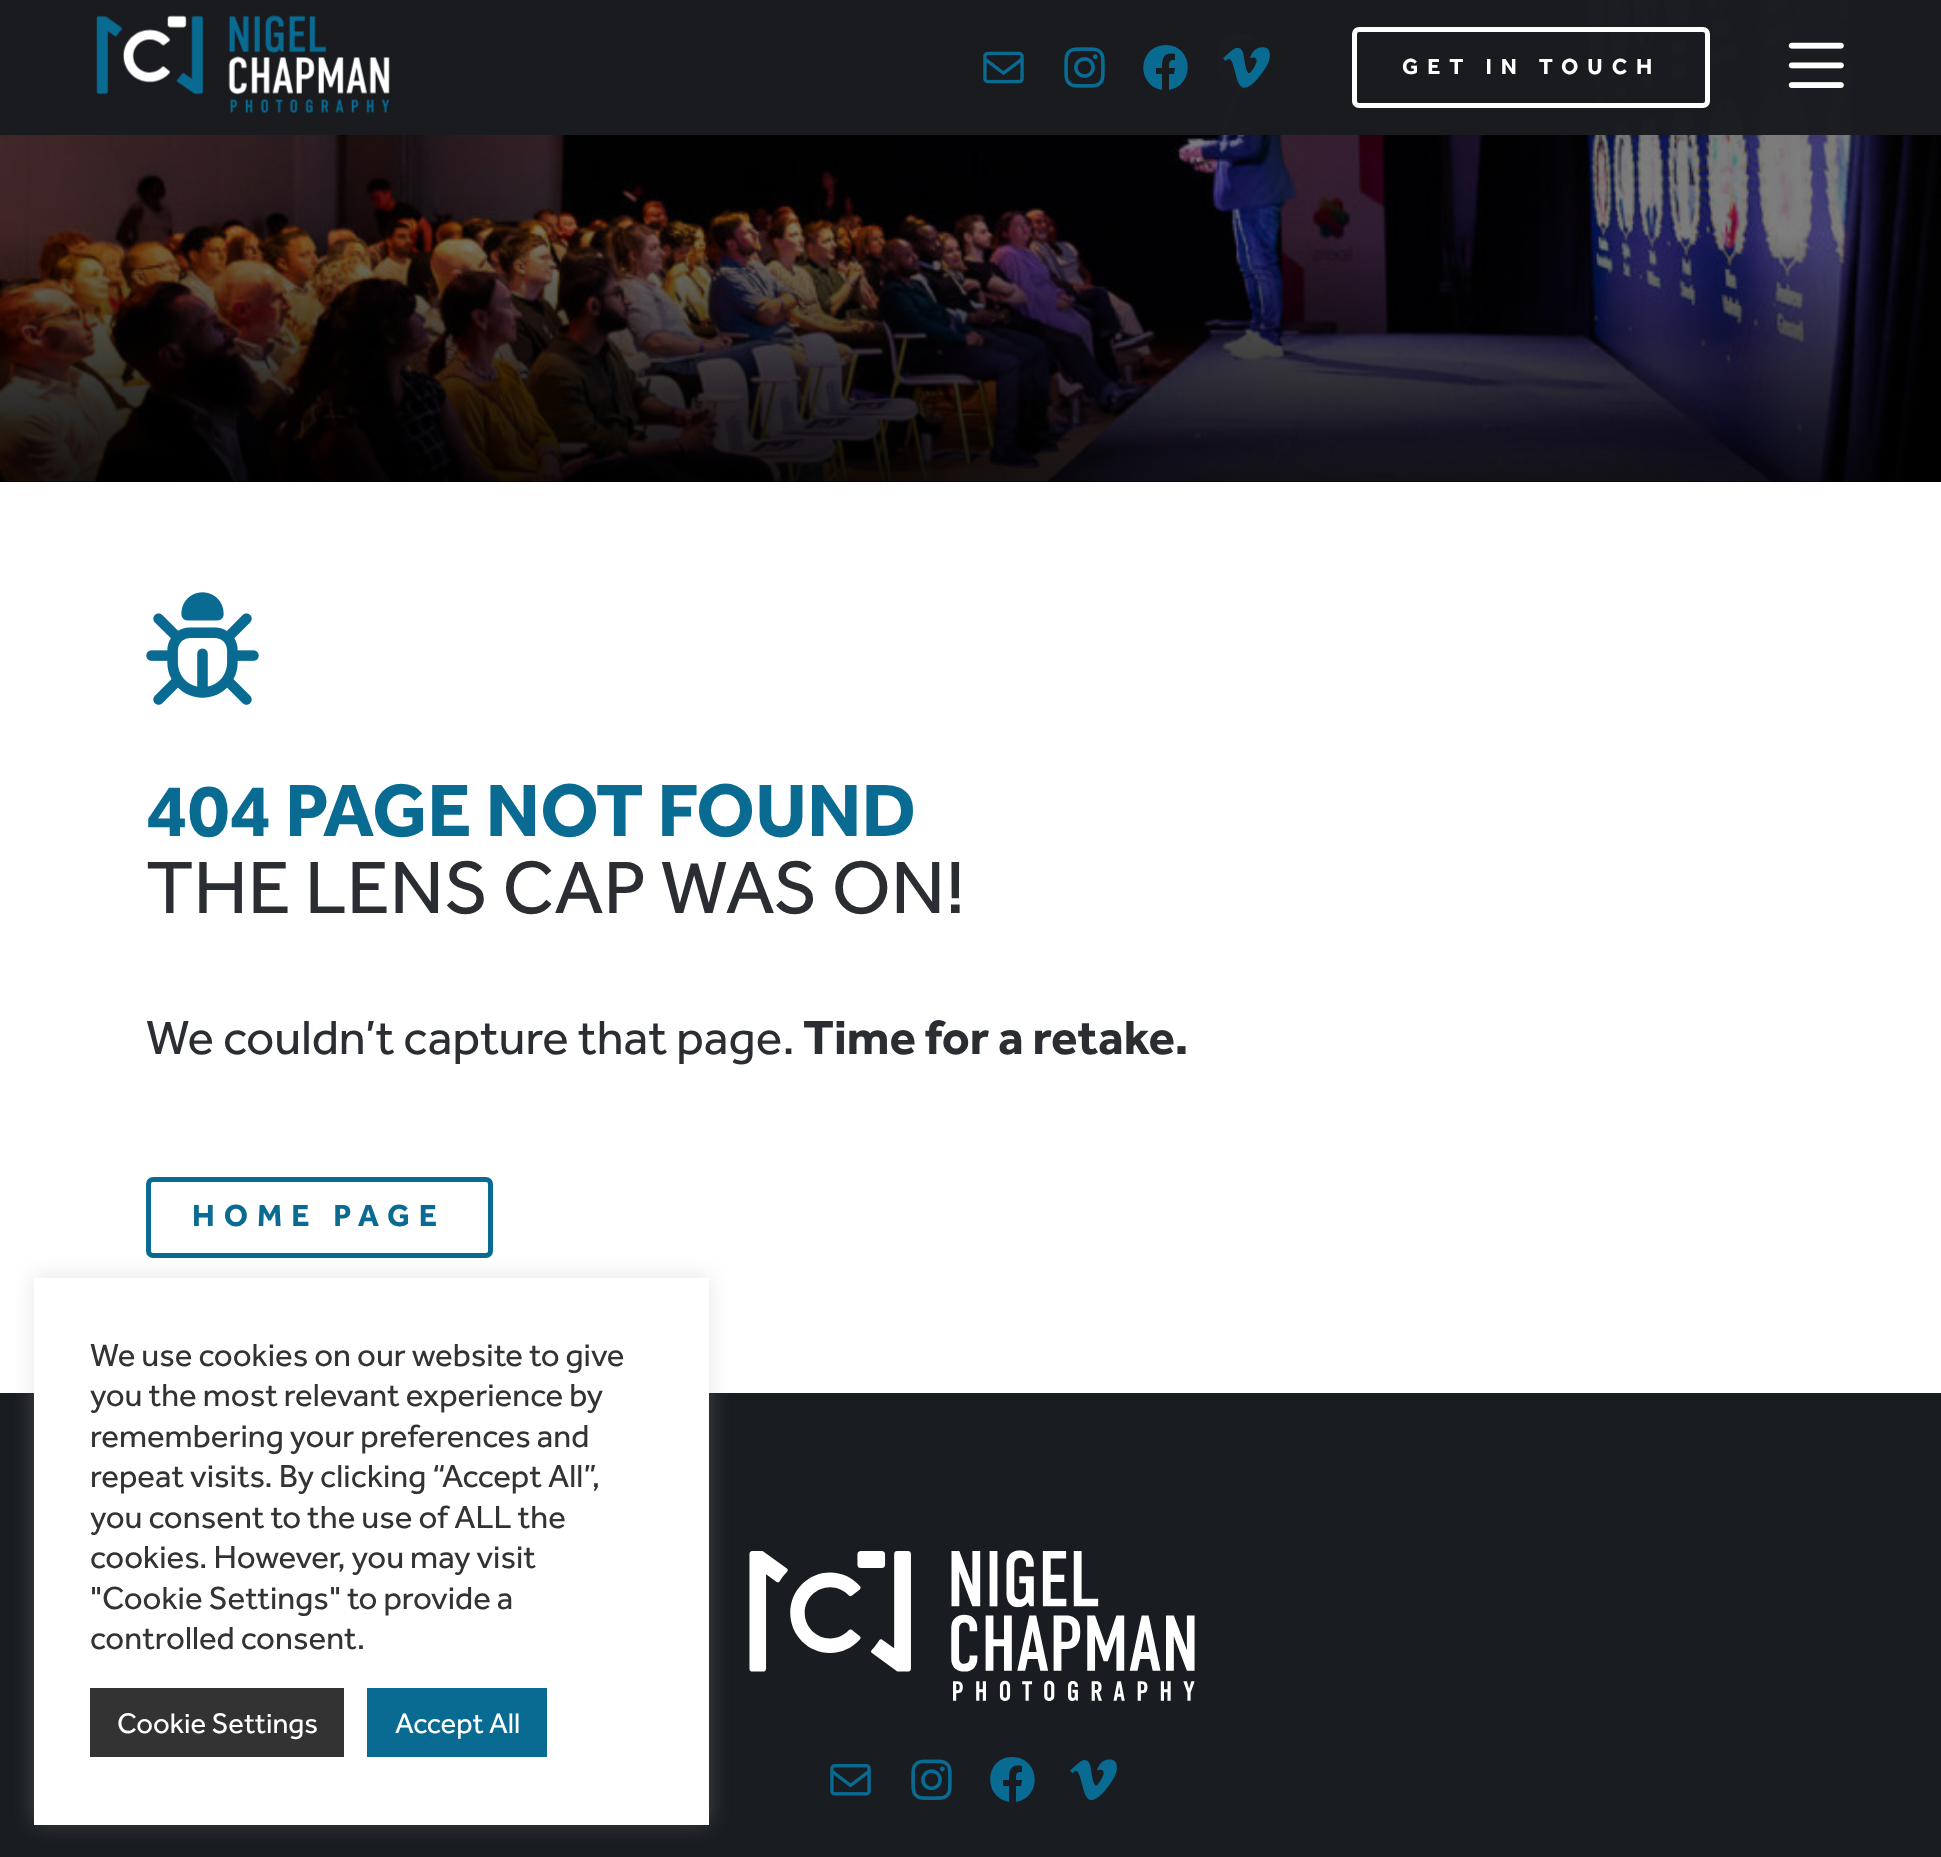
<svg xmlns="http://www.w3.org/2000/svg" xmlns:xlink="http://www.w3.org/1999/xlink" width="1941" height="1857" viewBox="0 0 1941 1857">
<style>
.cls-1{font:bold 22.5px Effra;letter-spacing:9px;fill:#ffffff}
.cls-2{font:bold 76.5px Effra;fill:#096a92}
.cls-3{font:76.5px Effra;fill:#2a2e33}
.cls-4{font:49.5px Effra;fill:#2a2e33}
.cls-5{font:bold 49.5px Effra;fill:#2a2e33}
.cls-6{font:bold 31.5px Effra;letter-spacing:9px;fill:#096a92}
.cls-7{font:33px Effra;fill:#333333}
.cls-8{font:29.25px Effra;fill:#ffffff}
</style>
<defs>
<linearGradient id="g1" gradientUnits="userSpaceOnUse" x1="971" y1="482" x2="971" y2="-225"><stop offset="0" stop-color="#000000" stop-opacity="0.7"/><stop offset="0.35" stop-color="#000000" stop-opacity="0.3"/></linearGradient>
</defs>
<rect width="100%" height="100%" fill="#191c20"/>
<image xlink:href="image0.png" x="0" y="0" width="1941" height="482"/>
<rect fill="url(#g1)" x="0" y="0" width="1941" height="482"/>
<rect fill="url(#g1)" x="0" y="0" width="1941" height="482"/>
<rect fill="#191c20" fill-opacity="0.98" x="0" y="0" width="1941" height="135"/>
<image xlink:href="image1.png" x="96" y="15" width="294" height="98"/>
<image xlink:href="image2.png" x="983" y="51" width="41" height="33"/>
<image xlink:href="image3.png" x="1064" y="47" width="41" height="41"/>
<path fill="#096a92" d="M1166 45C1138 45 1135 85 1162 90V74H1156V68H1162C1162 57 1164 52 1175 54V60C1169 60 1169 61 1169 68H1175L1174 74H1169V90C1196 85 1193 45 1166 45Z"/>
<image xlink:href="image4.png" x="1223" y="47" width="47" height="41"/>
<rect fill="none" stroke="#ffffff" stroke-width="5" x="1354.5" y="29.5" width="353" height="76" rx="4.5"/>
<image xlink:href="image5.png" x="1788" y="42" width="56" height="46"/>
<rect fill="#ffffff" x="0" y="482" width="1941" height="911"/>
<image xlink:href="image6.png" x="146" y="592" width="113" height="113"/>
<rect fill="none" stroke="#096a92" stroke-width="5" x="148.5" y="1179.5" width="342" height="76" rx="4.5"/>
<image xlink:href="image7.png" x="749" y="1550" width="446" height="151"/>
<image xlink:href="image8.png" x="830" y="1764" width="41" height="32"/>
<image xlink:href="image9.png" x="911" y="1759" width="41" height="41"/>
<path fill="#096a92" d="M1012 1757C985 1757 982 1797 1009 1802V1786H1003V1780H1009C1009 1769 1011 1764 1022 1766V1772C1016 1772 1016 1773 1016 1780H1022L1021 1786H1016V1802C1043 1797 1040 1757 1012 1757Z"/>
<image xlink:href="image10.png" x="1070" y="1759" width="47" height="41"/>
<rect fill="#acabab" fill-opacity="0.3" filter="blur(11px)" x="34" y="1276" width="675" height="547"/>
<rect fill="#ffffff" x="34" y="1278" width="675" height="547"/>
<rect fill="#333333" x="90" y="1688" width="254" height="69"/>
<rect fill="#096a92" x="367" y="1688" width="180" height="69"/>
<text class="cls-1" x="1402" y="74">GET IN TOUCH</text>
<text class="cls-2" x="146" y="836">404 PAGE NOT FOUND</text>
<text class="cls-3" x="146" y="913">THE LENS CAP WAS ON!</text>
<text class="cls-4" x="146" y="1054">We couldn’t capture that page.</text>
<text class="cls-5" x="803" y="1054">Time for a retake.</text>
<text class="cls-6" x="192" y="1226">HOME PAGE</text>
<text class="cls-7"><tspan x="90" y="1366">We use cookies on our website to give</tspan><tspan x="90" y="1406">you the most relevant experience by</tspan><tspan x="90" y="1447">remembering your preferences and</tspan><tspan x="90" y="1487">repeat visits. By clicking “Accept All”,</tspan><tspan x="90" y="1528">you consent to the use of ALL the</tspan><tspan x="90" y="1568">cookies. However, you may visit</tspan><tspan x="90" y="1609">"Cookie Settings" to provide a</tspan><tspan x="90" y="1649">controlled consent.</tspan></text>
<text class="cls-8" x="117" y="1733">Cookie Settings</text>
<text class="cls-8" x="395" y="1733">Accept All</text>
</svg>
